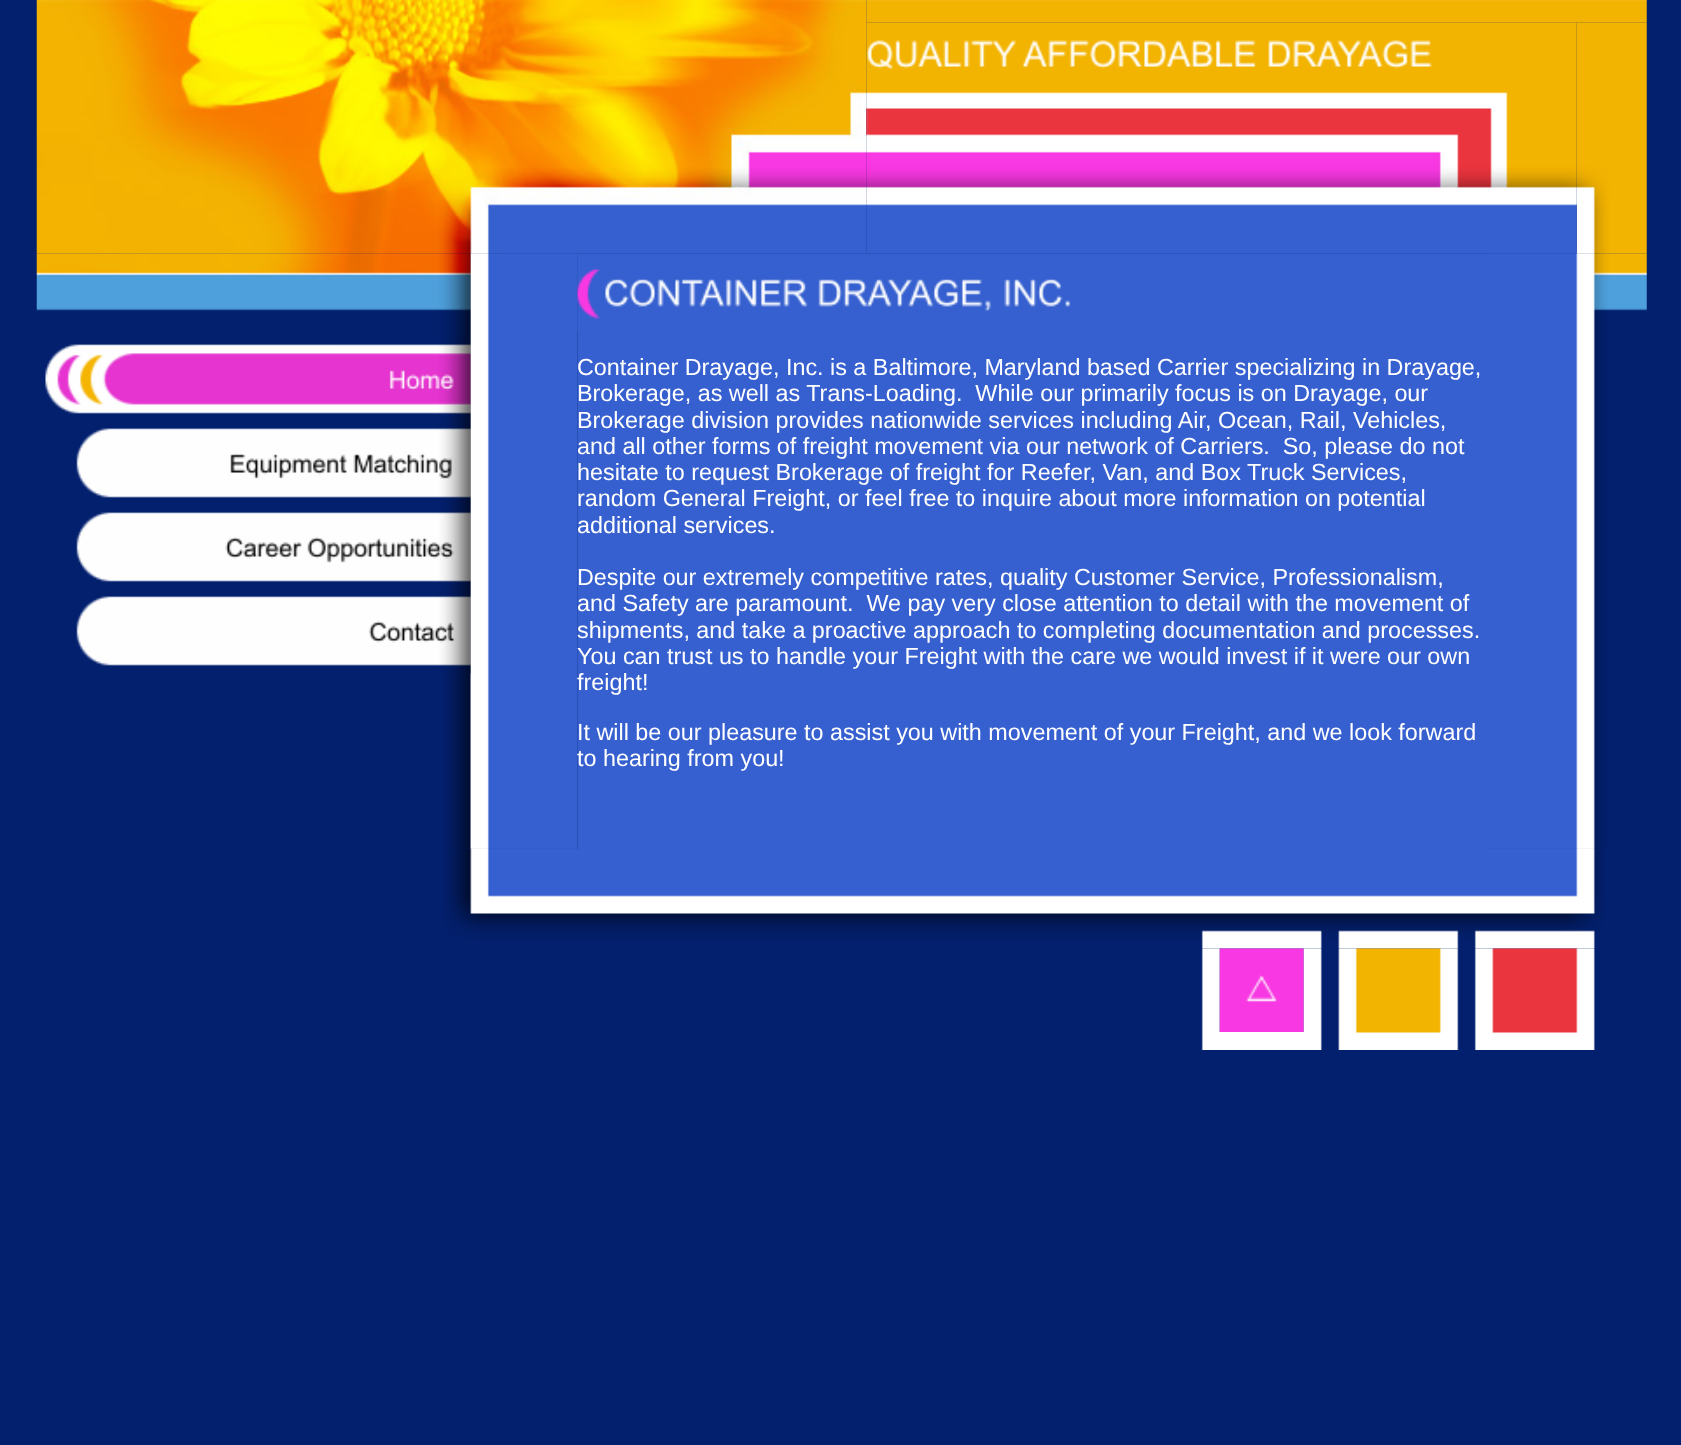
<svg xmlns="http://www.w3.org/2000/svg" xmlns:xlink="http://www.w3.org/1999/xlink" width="1681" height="1445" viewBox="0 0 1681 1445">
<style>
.cls-1{font:23.35px Liberation Sans;fill:#ffffff}
</style>
<rect width="100%" height="100%" fill="#03206e"/>
<image xlink:href="image5.png" x="444" y="253" width="27" height="596"/>
<image xlink:href="image11.png" x="470" y="253" width="108" height="596"/>
<image xlink:href="image0.png" x="36" y="0" width="831" height="254"/>
<image xlink:href="image1.png" x="866" y="0" width="781" height="23"/>
<image xlink:href="image2.png" x="866" y="22" width="711" height="62"/>
<rect fill="#3660cf" x="578" y="254" width="910" height="595"/>
<image xlink:href="image14.png" x="1487" y="253" width="117" height="596"/>
<image xlink:href="image3.png" x="1576" y="22" width="71" height="232"/>
<image xlink:href="image4.png" x="866" y="84" width="711" height="170"/>
<image xlink:href="image6.png" x="36" y="253" width="435" height="85"/>
<image xlink:href="image7.png" x="45" y="337" width="426" height="85"/>
<image xlink:href="image8.png" x="76" y="421" width="395" height="85"/>
<image xlink:href="image9.png" x="76" y="505" width="395" height="85"/>
<image xlink:href="image10.png" x="76" y="589" width="395" height="85"/>
<image xlink:href="image12.png" x="470" y="253" width="108" height="596"/>
<image xlink:href="image13.png" x="577" y="253" width="910" height="78"/>
<image xlink:href="image15.png" x="1488" y="253" width="159" height="596"/>
<image xlink:href="image16.png" x="444" y="848" width="1160" height="101"/>
<image xlink:href="image17.png" x="1201" y="948" width="19" height="102"/>
<image xlink:href="image18.png" x="1219" y="948" width="85" height="84"/>
<image xlink:href="image19.png" x="1303" y="948" width="292" height="102"/>
<rect fill="#ffffff" x="1219" y="1032" width="85" height="18"/>
<text class="cls-1" xml:space="preserve"><tspan x="577" y="375">Container Drayage, Inc. is a Baltimore, Maryland based Carrier specializing in Drayage,</tspan><tspan x="577" y="401">Brokerage, as well as Trans-Loading.  While our primarily focus is on Drayage, our</tspan><tspan x="577" y="428">Brokerage division provides nationwide services including Air, Ocean, Rail, Vehicles,</tspan><tspan x="577" y="454">and all other forms of freight movement via our network of Carriers.  So, please do not</tspan><tspan x="577" y="480">hesitate to request Brokerage of freight for Reefer, Van, and Box Truck Services,</tspan><tspan x="577" y="506">random General Freight, or feel free to inquire about more information on potential</tspan><tspan x="577" y="533">additional services.</tspan></text>
<text class="cls-1" xml:space="preserve"><tspan x="577" y="585">Despite our extremely competitive rates, quality Customer Service, Professionalism,</tspan><tspan x="577" y="611">and Safety are paramount.  We pay very close attention to detail with the movement of</tspan><tspan x="577" y="638">shipments, and take a proactive approach to completing documentation and processes.</tspan><tspan x="577" y="664">You can trust us to handle your Freight with the care we would invest if it were our own</tspan><tspan x="577" y="690">freight!</tspan></text>
<text class="cls-1"><tspan x="577" y="740">It will be our pleasure to assist you with movement of your Freight, and we look forward</tspan><tspan x="577" y="766">to hearing from you!</tspan></text>
</svg>
